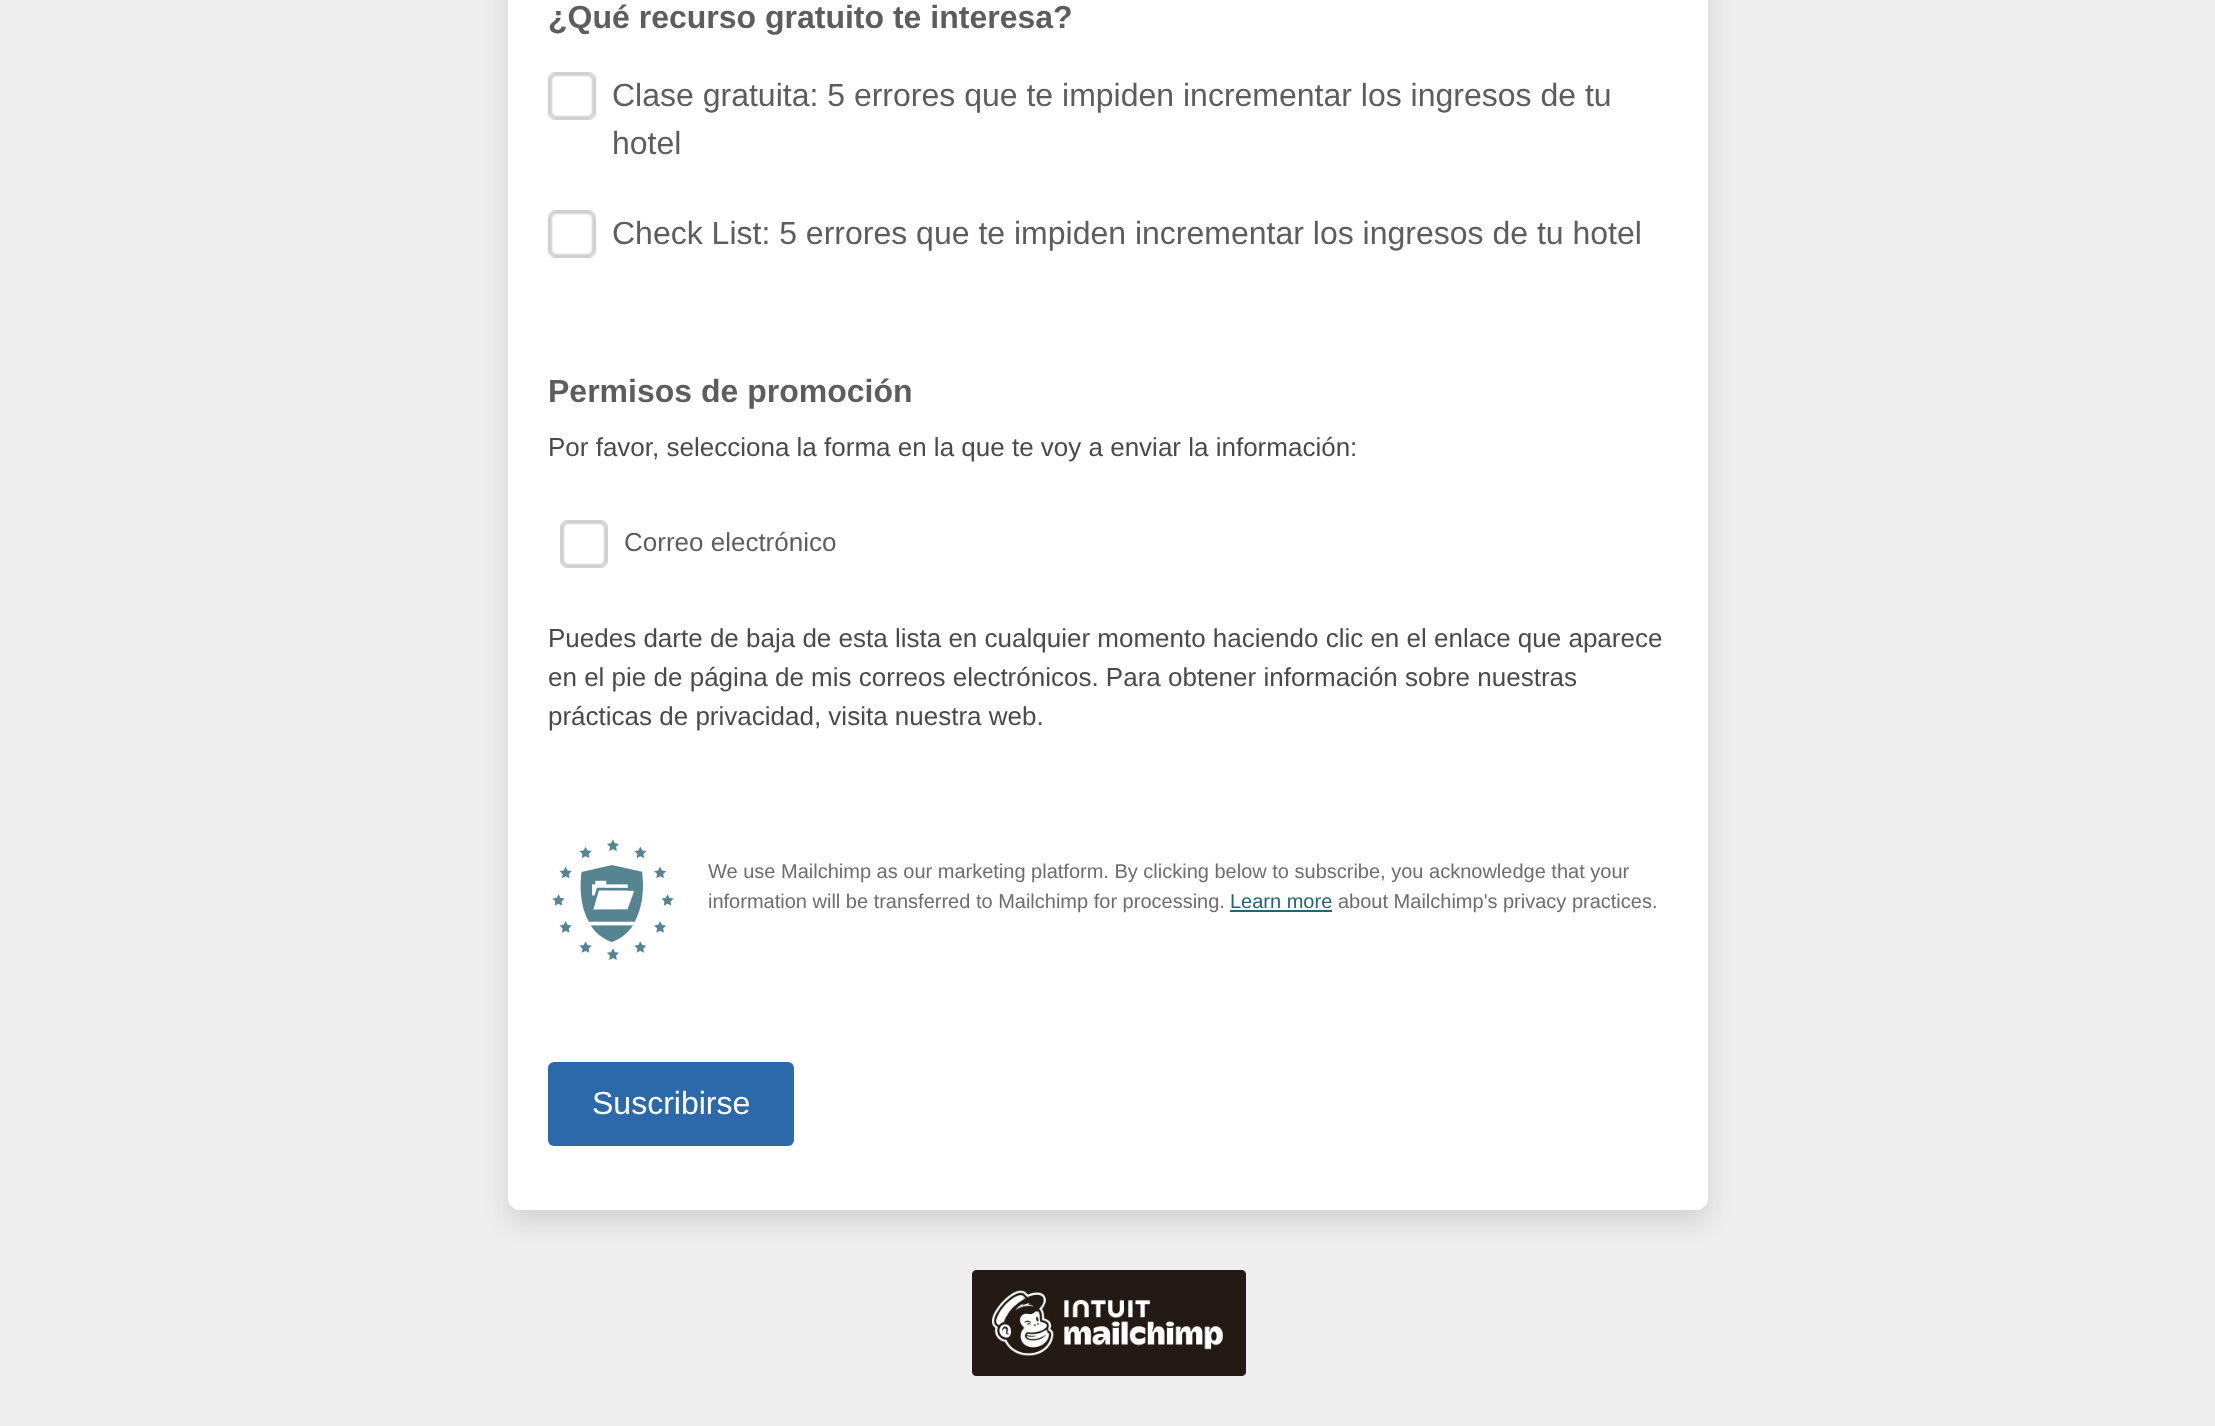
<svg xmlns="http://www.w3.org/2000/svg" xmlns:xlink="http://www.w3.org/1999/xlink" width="2215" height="1426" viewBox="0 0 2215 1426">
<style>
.cls-1{font:bold 32px Liberation Sans;fill:#5d5d5d}
.cls-2{font:32px Liberation Sans;fill:#5d5d5d}
.cls-3{font:26px Liberation Sans;fill:#4a4a4a}
.cls-4{font:26px Liberation Sans;fill:#5d5d5d}
.cls-5{font:20px Liberation Sans;fill:#6d6d6d}
.cls-6{font:20px Liberation Sans;fill:#206578}
.cls-7{font:32px Liberation Sans;fill:#ffffff}
</style>
<rect width="100%" height="100%" fill="#eeeeee"/>
<rect fill="#0d1216" fill-opacity="0.12" filter="blur(12px)" x="508" y="-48" width="1200" height="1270" rx="12"/>
<rect fill="#ffffff" x="508" y="-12" width="1200" height="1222" rx="12"/>
<image xlink:href="image0.png" x="548" y="72" width="48" height="48"/>
<image xlink:href="image0.png" x="548" y="210" width="48" height="48"/>
<image xlink:href="image0.png" x="560" y="520" width="48" height="48"/>
<image xlink:href="image1.png" x="552" y="839" width="122" height="121"/>
<rect fill="#206578" x="1230" y="910" width="102" height="2"/>
<rect fill="#2b69aa" x="548" y="1062" width="246" height="84" rx="6"/>
<image xlink:href="image2.png" x="972" y="1270" width="274" height="106"/>
<text class="cls-1" x="548" y="28">¿Qué recurso gratuito te interesa?</text>
<text class="cls-2"><tspan x="612" y="106">Clase gratuita: 5 errores que te impiden incrementar los ingresos de tu</tspan><tspan x="612" y="154">hotel</tspan></text>
<text class="cls-2" x="612" y="244">Check List: 5 errores que te impiden incrementar los ingresos de tu hotel</text>
<text class="cls-1" x="548" y="402">Permisos de promoción</text>
<text class="cls-3" x="548" y="456">Por favor, selecciona la forma en la que te voy a enviar la información:</text>
<text class="cls-4" x="624" y="551">Correo electrónico</text>
<text class="cls-3"><tspan x="548" y="647">Puedes darte de baja de esta lista en cualquier momento haciendo clic en el enlace que aparece</tspan><tspan x="548" y="686">en el pie de página de mis correos electrónicos. Para obtener información sobre nuestras</tspan><tspan x="548" y="725">prácticas de privacidad, visita nuestra web.</tspan></text>
<text class="cls-5"><tspan x="708" y="878">We use Mailchimp as our marketing platform. By clicking below to subscribe, you acknowledge that your</tspan><tspan x="708" y="908">information will be transferred to Mailchimp for processing.</tspan></text>
<text class="cls-6" x="1230" y="908">Learn more</text>
<text class="cls-5" x="1338" y="908">about Mailchimp's privacy practices.</text>
<text class="cls-7" x="592" y="1114">Suscribirse</text>
</svg>
